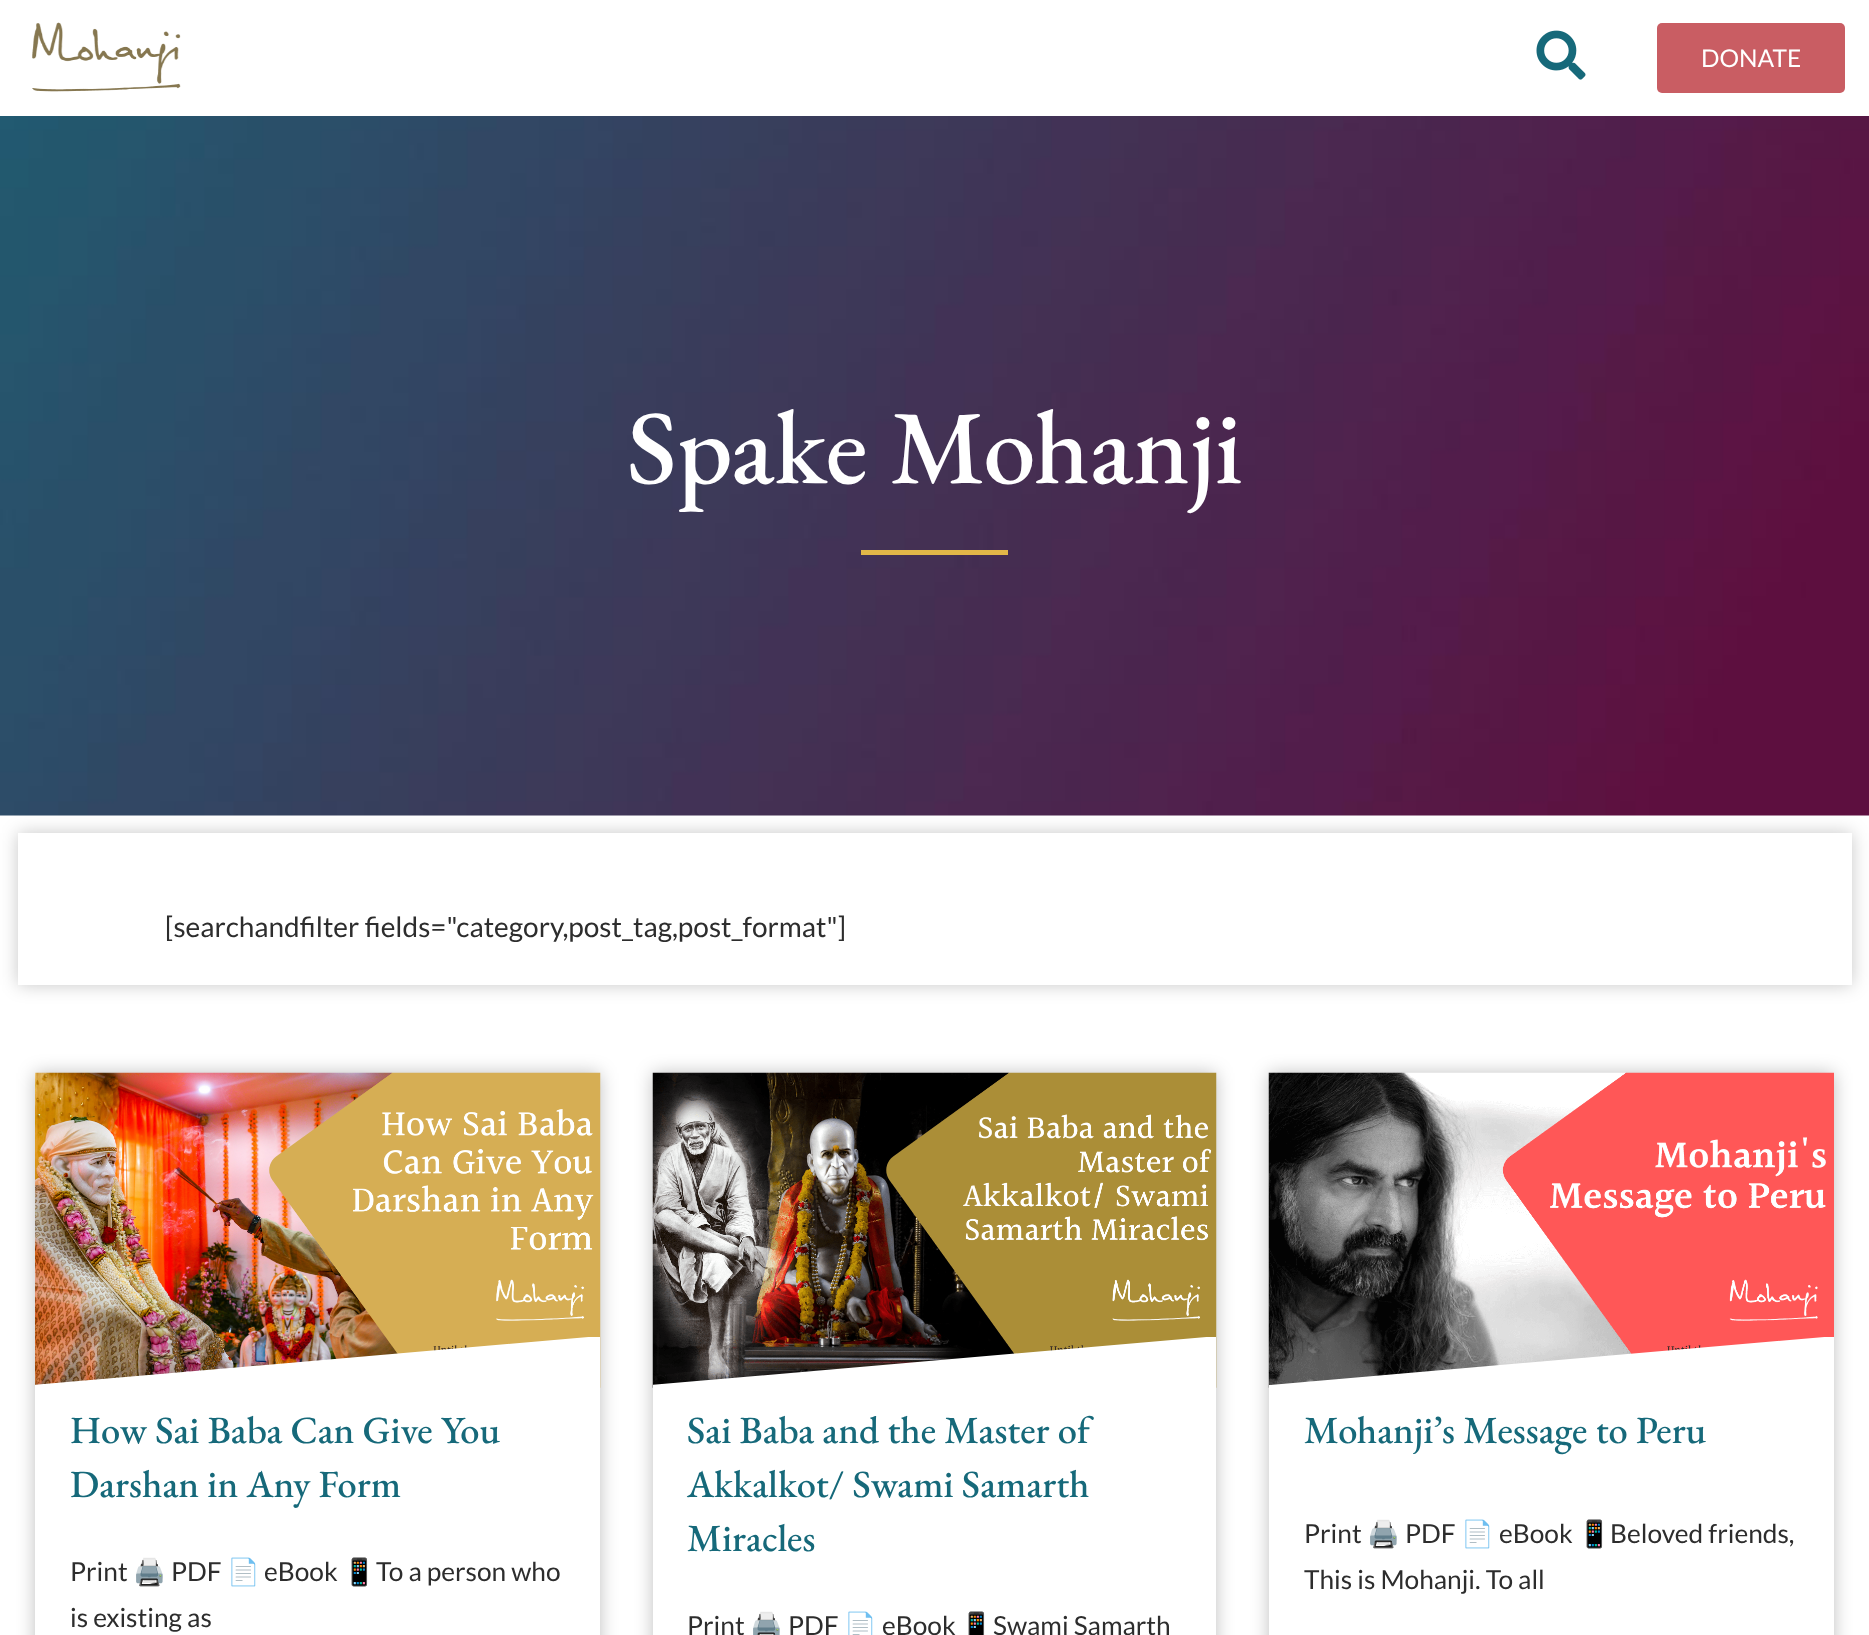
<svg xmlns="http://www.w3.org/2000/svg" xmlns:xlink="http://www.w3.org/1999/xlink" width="1869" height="1635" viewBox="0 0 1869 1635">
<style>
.cls-1{font:24.5px Lato;fill:#ffffff}
.cls-2{font:500 105px EB Garamond;fill:#ffffff}
.cls-3{font:28px Lato;fill:#2d2d2d}
.cls-4{font:500 38.5px EB Garamond;fill:#16697a}
.cls-5{font:26.25px Lato;fill:#2d2d2d}
.cls-6{font:26.25px Noto Color Emoji;fill:#2d2d2d}
</style>
<defs>
<clipPath id="clip1"><path d="M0 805H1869V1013H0ZM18 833H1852V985H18Z" clip-rule="evenodd"/></clipPath>
<clipPath id="clip2"><path d="M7 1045H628V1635H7ZM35 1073H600V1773H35Z" clip-rule="evenodd"/></clipPath>
<clipPath id="clip3"><rect x="35" y="1337" width="565" height="53"/></clipPath>
<clipPath id="clip4"><path d="M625 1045H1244V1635H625ZM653 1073H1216V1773H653Z" clip-rule="evenodd"/></clipPath>
<clipPath id="clip5"><rect x="653" y="1337" width="563" height="53"/></clipPath>
<clipPath id="clip6"><path d="M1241 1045H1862V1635H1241ZM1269 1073H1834V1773H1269Z" clip-rule="evenodd"/></clipPath>
<clipPath id="clip7"><rect x="1269" y="1337" width="565" height="53"/></clipPath>
</defs>
<rect width="100%" height="100%" fill="#ffffff"/>
<image xlink:href="image0.png" x="32" y="22" width="149" height="70"/>
<image xlink:href="image1.png" x="1536" y="30" width="50" height="50"/>
<rect fill="#c95d63" x="1657" y="23" width="188" height="70" rx="5"/>
<image xlink:href="image2.png" x="0" y="116" width="1869" height="700"/>
<rect fill="#e2b748" x="861" y="550" width="147" height="5"/>
<g clip-path="url(#clip1)">
<rect fill="#000000" fill-opacity="0.22" filter="blur(9px)" x="18" y="833" width="1834" height="152"/>
</g>
<g clip-path="url(#clip2)">
<rect fill="#000000" fill-opacity="0.25" filter="blur(9px)" x="35" y="1073" width="565" height="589"/>
</g>
<image xlink:href="image3.png" x="35" y="1072" width="566" height="316"/>
<g clip-path="url(#clip3)">
<path fill="#ffffff" d="M33 1385V1388H600V1336Z"/>
</g>
<g clip-path="url(#clip4)">
<rect fill="#000000" fill-opacity="0.25" filter="blur(9px)" x="653" y="1073" width="563" height="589"/>
</g>
<image xlink:href="image4.png" x="652" y="1072" width="565" height="316"/>
<g clip-path="url(#clip5)">
<path fill="#ffffff" d="M651 1385V1388H1218V1336Z"/>
</g>
<g clip-path="url(#clip6)">
<rect fill="#000000" fill-opacity="0.25" filter="blur(9px)" x="1269" y="1073" width="565" height="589"/>
</g>
<image xlink:href="image5.png" x="1268" y="1072" width="566" height="316"/>
<g clip-path="url(#clip7)">
<path fill="#ffffff" d="M1269 1385V1388H1836V1336Z"/>
</g>
<text class="cls-1" x="1701" y="67">DONATE</text>
<text class="cls-2" x="627" y="483">Spake Mohanji</text>
<text class="cls-3" x="165" y="937">[searchandfilter fields="category,post_tag,post_format"]</text>
<text class="cls-4"><tspan x="70" y="1443">How Sai Baba Can Give You</tspan><tspan x="70" y="1497">Darshan in Any Form</tspan></text>
<text class="cls-5" x="70" y="1581">Print</text>
<text class="cls-6" x="133" y="1581">🖨</text>
<text class="cls-5" x="171" y="1581">PDF</text>
<text class="cls-6" x="227" y="1581">📄</text>
<text class="cls-5" x="264" y="1581">eBook</text>
<text class="cls-6" x="343" y="1581">📱</text>
<text class="cls-5" x="376" y="1581">To a person who</text>
<text class="cls-5" x="70" y="1627">is existing as</text>
<text class="cls-4"><tspan x="687" y="1443">Sai Baba and the Master of</tspan><tspan x="687" y="1497">Akkalkot/ Swami Samarth</tspan><tspan x="687" y="1551">Miracles</tspan></text>
<text class="cls-5" x="687" y="1635">Print</text>
<text class="cls-6" x="750" y="1635">🖨</text>
<text class="cls-5" x="788" y="1635">PDF</text>
<text class="cls-6" x="844" y="1635">📄</text>
<text class="cls-5" x="882" y="1635">eBook</text>
<text class="cls-6" x="960" y="1635">📱</text>
<text class="cls-5" x="993" y="1635">Swami Samarth</text>
<text class="cls-4" x="1304" y="1443">Mohanji’s Message to Peru</text>
<text class="cls-5" x="1304" y="1543">Print</text>
<text class="cls-6" x="1367" y="1543">🖨</text>
<text class="cls-5" x="1405" y="1543">PDF</text>
<text class="cls-6" x="1461" y="1543">📄</text>
<text class="cls-5" x="1499" y="1543">eBook</text>
<text class="cls-6" x="1578" y="1543">📱</text>
<text class="cls-5" x="1610" y="1543">Beloved friends,</text>
<text class="cls-5" x="1304" y="1589">This is Mohanji. To all</text>
</svg>
